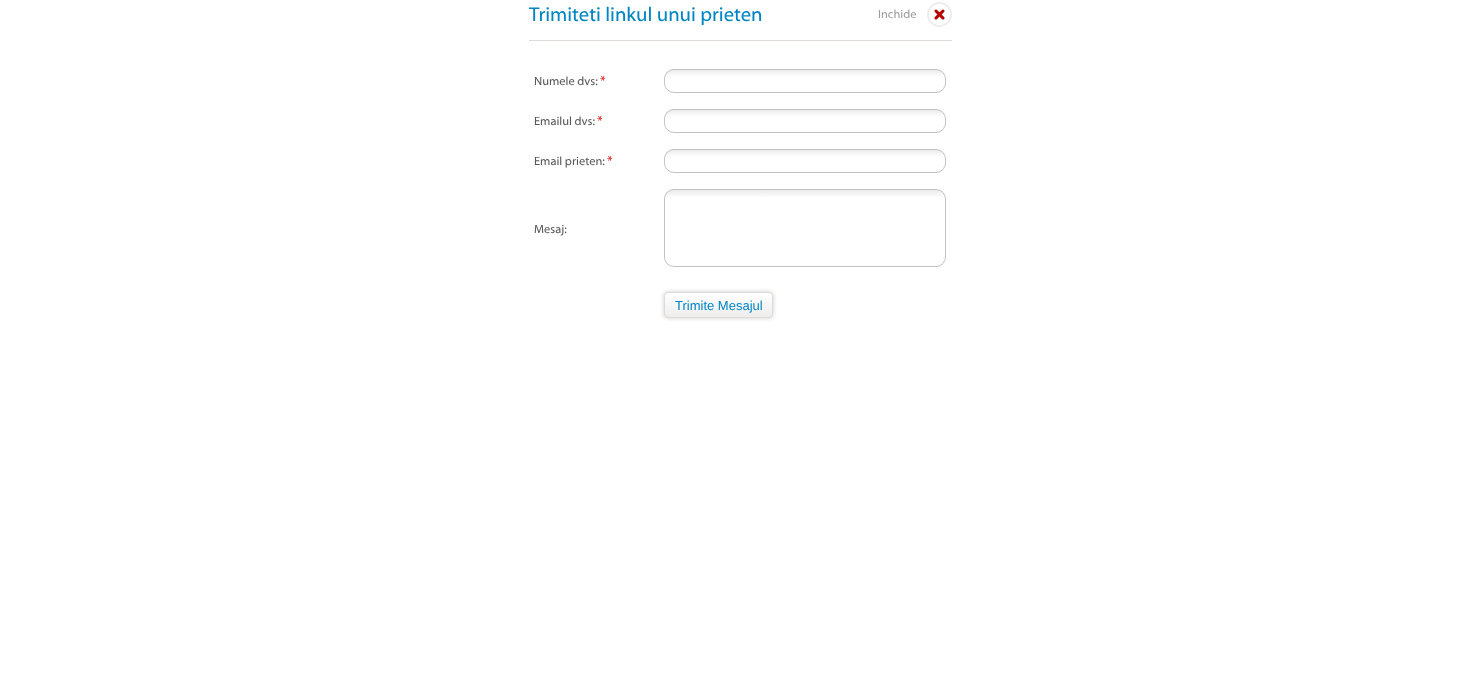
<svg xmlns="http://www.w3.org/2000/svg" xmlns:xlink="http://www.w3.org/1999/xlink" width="1480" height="685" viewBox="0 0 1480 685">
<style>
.cls-1{font:20px Myriad;fill:#0185c3}
.cls-2{font:12px Myriad;fill:#9d9d9d}
.cls-3{font:12px Myriad;fill:#5a5a5a}
.cls-4{font:13px Myriad;fill:#d70000}
.cls-5{font:13px Liberation Sans;fill:#0185c3}
</style>
<defs>
<clipPath id="clip1"><rect x="664" y="69" width="282" height="24" rx="10"/></clipPath>
<linearGradient id="g1" gradientUnits="userSpaceOnUse" x1="805" y1="70" x2="805" y2="92"><stop offset="0" stop-color="#ebebeb"/><stop offset="0.29" stop-color="#ffffff"/><stop offset="1" stop-color="#ffffff"/></linearGradient>
<clipPath id="clip2"><rect x="664" y="109" width="282" height="24" rx="10"/></clipPath>
<linearGradient id="g2" gradientUnits="userSpaceOnUse" x1="805" y1="110" x2="805" y2="132"><stop offset="0" stop-color="#ebebeb"/><stop offset="0.29" stop-color="#ffffff"/><stop offset="1" stop-color="#ffffff"/></linearGradient>
<clipPath id="clip3"><rect x="664" y="149" width="282" height="24" rx="10"/></clipPath>
<linearGradient id="g3" gradientUnits="userSpaceOnUse" x1="805" y1="150" x2="805" y2="172"><stop offset="0" stop-color="#ebebeb"/><stop offset="0.29" stop-color="#ffffff"/><stop offset="1" stop-color="#ffffff"/></linearGradient>
<clipPath id="clip4"><rect x="664" y="189" width="282" height="78" rx="10"/></clipPath>
<linearGradient id="g4" gradientUnits="userSpaceOnUse" x1="805" y1="190" x2="805" y2="266"><stop offset="0" stop-color="#ebebeb"/><stop offset="0.1" stop-color="#ffffff"/><stop offset="1" stop-color="#ffffff"/></linearGradient>
<clipPath id="clip5"><rect x="664" y="292" width="109" height="26" rx="4"/></clipPath>
<linearGradient id="g5" gradientUnits="userSpaceOnUse" x1="665" y1="293" x2="665" y2="317"><stop offset="0" stop-color="#ffffff"/><stop offset="1" stop-color="#ededed"/></linearGradient>
</defs>
<rect width="100%" height="100%" fill="#ffffff"/>
<rect fill="#dddad7" x="529" y="40" width="423" height="1"/>
<image xlink:href="image0.png" x="927" y="2" width="25" height="25"/>
<g clip-path="url(#clip1)">
<rect fill="url(#g1)" x="664" y="70" width="282" height="22"/>
</g>
<rect fill="none" stroke="#c3c2c0" x="664.5" y="69.5" width="281" height="23" rx="9.5"/>
<g clip-path="url(#clip2)">
<rect fill="url(#g2)" x="664" y="110" width="282" height="22"/>
</g>
<rect fill="none" stroke="#c3c2c0" x="664.5" y="109.5" width="281" height="23" rx="9.5"/>
<g clip-path="url(#clip3)">
<rect fill="url(#g3)" x="664" y="150" width="282" height="22"/>
</g>
<rect fill="none" stroke="#c3c2c0" x="664.5" y="149.5" width="281" height="23" rx="9.5"/>
<g clip-path="url(#clip4)">
<rect fill="url(#g4)" x="664" y="190" width="282" height="76"/>
</g>
<rect fill="none" stroke="#c3c2c0" x="664.5" y="189.5" width="281" height="77" rx="9.5"/>
<rect fill="#cccccc" filter="blur(2px)" x="664" y="292" width="109" height="26" rx="4"/>
<g clip-path="url(#clip5)">
<rect fill="url(#g5)" x="664" y="293" width="109" height="24"/>
</g>
<rect fill="none" stroke="#dddad7" x="664.5" y="292.5" width="108" height="25" rx="3.5"/>
<text class="cls-1" x="529" y="21">Trimiteti linkul unui prieten</text>
<text class="cls-2" x="878" y="18">Inchide</text>
<text class="cls-3" x="534" y="85">Numele dvs:</text>
<text class="cls-4" x="600" y="85">*</text>
<text class="cls-3" x="534" y="125">Emailul dvs:</text>
<text class="cls-4" x="597" y="125">*</text>
<text class="cls-3" x="534" y="165">Email prieten:</text>
<text class="cls-4" x="607" y="165">*</text>
<text class="cls-3" x="534" y="233">Mesaj:</text>
<text class="cls-5" x="675" y="310">Trimite Mesajul</text>
</svg>
